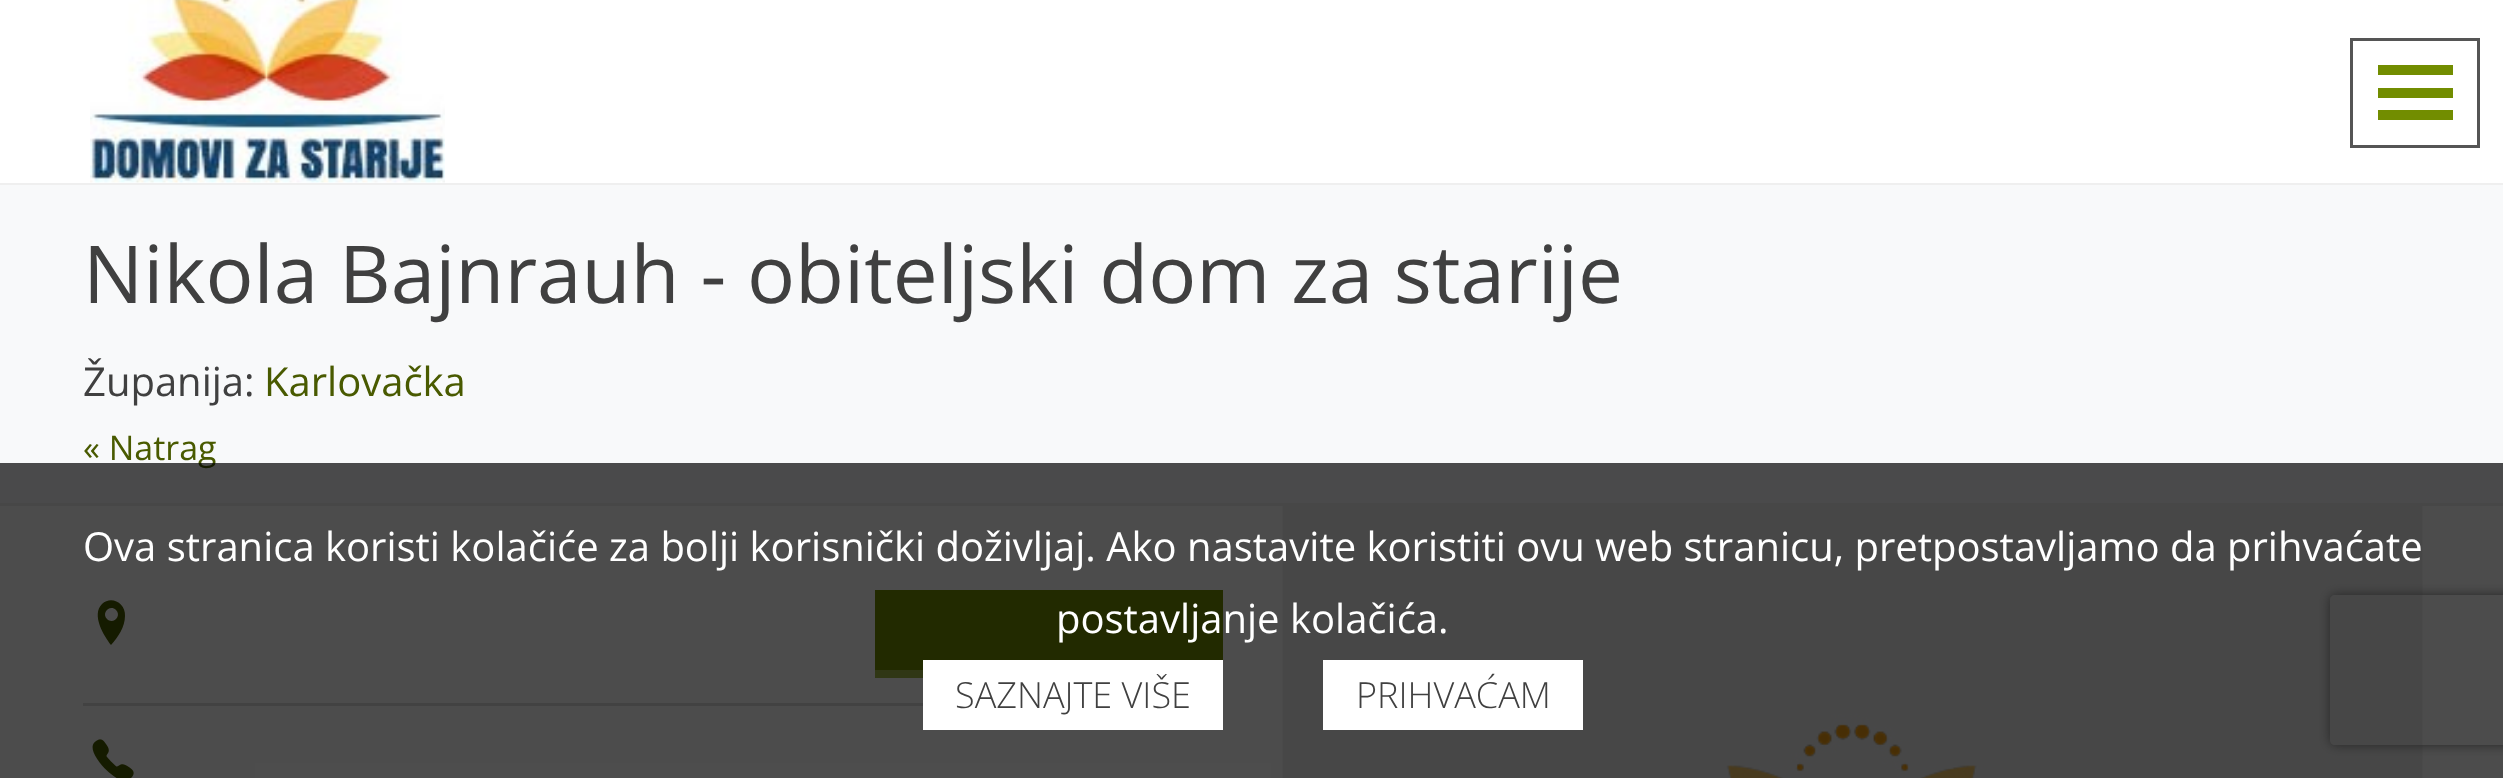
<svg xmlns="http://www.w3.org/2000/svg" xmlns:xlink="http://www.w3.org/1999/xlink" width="2503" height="778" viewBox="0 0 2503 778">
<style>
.cls-1{font:80px Open Sans;fill:#404040}
.cls-2{font:40px Open Sans;fill:#404040}
.cls-3{font:40px Open Sans;fill:#495a00}
.cls-4{font:34px Open Sans;fill:#495a00}
.cls-5{font:40px Open Sans;fill:#ffffff}
.cls-6{font:300 36px Open Sans;fill:#404040}
</style>
<defs>
<clipPath id="clip1"><path d="M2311 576H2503V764H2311ZM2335 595H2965C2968 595 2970 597 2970 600V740C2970 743 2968 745 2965 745H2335C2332 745 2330 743 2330 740V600C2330 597 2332 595 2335 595Z" clip-rule="evenodd"/></clipPath>
</defs>
<rect width="100%" height="100%" fill="#ffffff"/>
<rect fill="#efefef" x="0" y="183" width="2503" height="2"/>
<image xlink:href="image0.png" x="90" y="0" width="355" height="183"/>
<rect fill="none" stroke="#555555" stroke-width="3" x="2351.5" y="39.5" width="127" height="107"/>
<rect fill="#728d00" x="2378" y="65" width="75" height="10"/>
<rect fill="#728d00" x="2378" y="88" width="75" height="10"/>
<rect fill="#728d00" x="2378" y="110" width="75" height="10"/>
<rect fill="#f8f9fa" x="0" y="185" width="2503" height="318"/>
<rect fill="#efefef" x="0" y="503" width="2503" height="3"/>
<rect fill="#dddddd" x="83" y="703" width="840" height="3"/>
<path fill="#495a00" d="M102 604C111 595 126 603 125 616C125 627 118 637 111 645C104 636 91 615 102 604ZM107 619C113 625 122 616 116 610C110 604 101 613 107 619Z"/>
<rect fill="#728d00" x="875" y="590" width="348" height="80"/>
<rect fill="#a2b947" x="875" y="670" width="48" height="8"/>
<image xlink:href="image1.png" x="92" y="739" width="42" height="39"/>
<image xlink:href="image2.png" x="1282" y="506" width="1141" height="272"/>
<g clip-path="url(#clip1)">
<rect fill="#808080" filter="blur(6px)" x="2330" y="595" width="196" height="150" rx="5"/>
</g>
<text class="cls-1" x="83" y="303">Nikola Bajnrauh - obiteljski dom za starije</text>
<text class="cls-2" x="83" y="396">Županija:</text>
<text class="cls-3" x="264" y="396">Karlovačka</text>
<text class="cls-4" x="83" y="460">« Natrag</text>
<rect fill="#000000" fill-opacity="0.7" x="0" y="463" width="2503" height="315"/>
<text class="cls-5" x="83" y="561">Ova stranica koristi kolačiće za bolji korisnički doživljaj. Ako nastavite koristiti ovu web stranicu, pretpostavljamo da prihvaćate</text>
<text class="cls-5" x="1056" y="633">postavljanje kolačića.</text>
<rect fill="#ffffff" x="923" y="660" width="300" height="70"/>
<text class="cls-6" x="955" y="708">SAZNAJTE VIŠE</text>
<rect fill="#ffffff" x="1323" y="660" width="260" height="70"/>
<text class="cls-6" x="1356" y="708">PRIHVAĆAM</text>
</svg>
